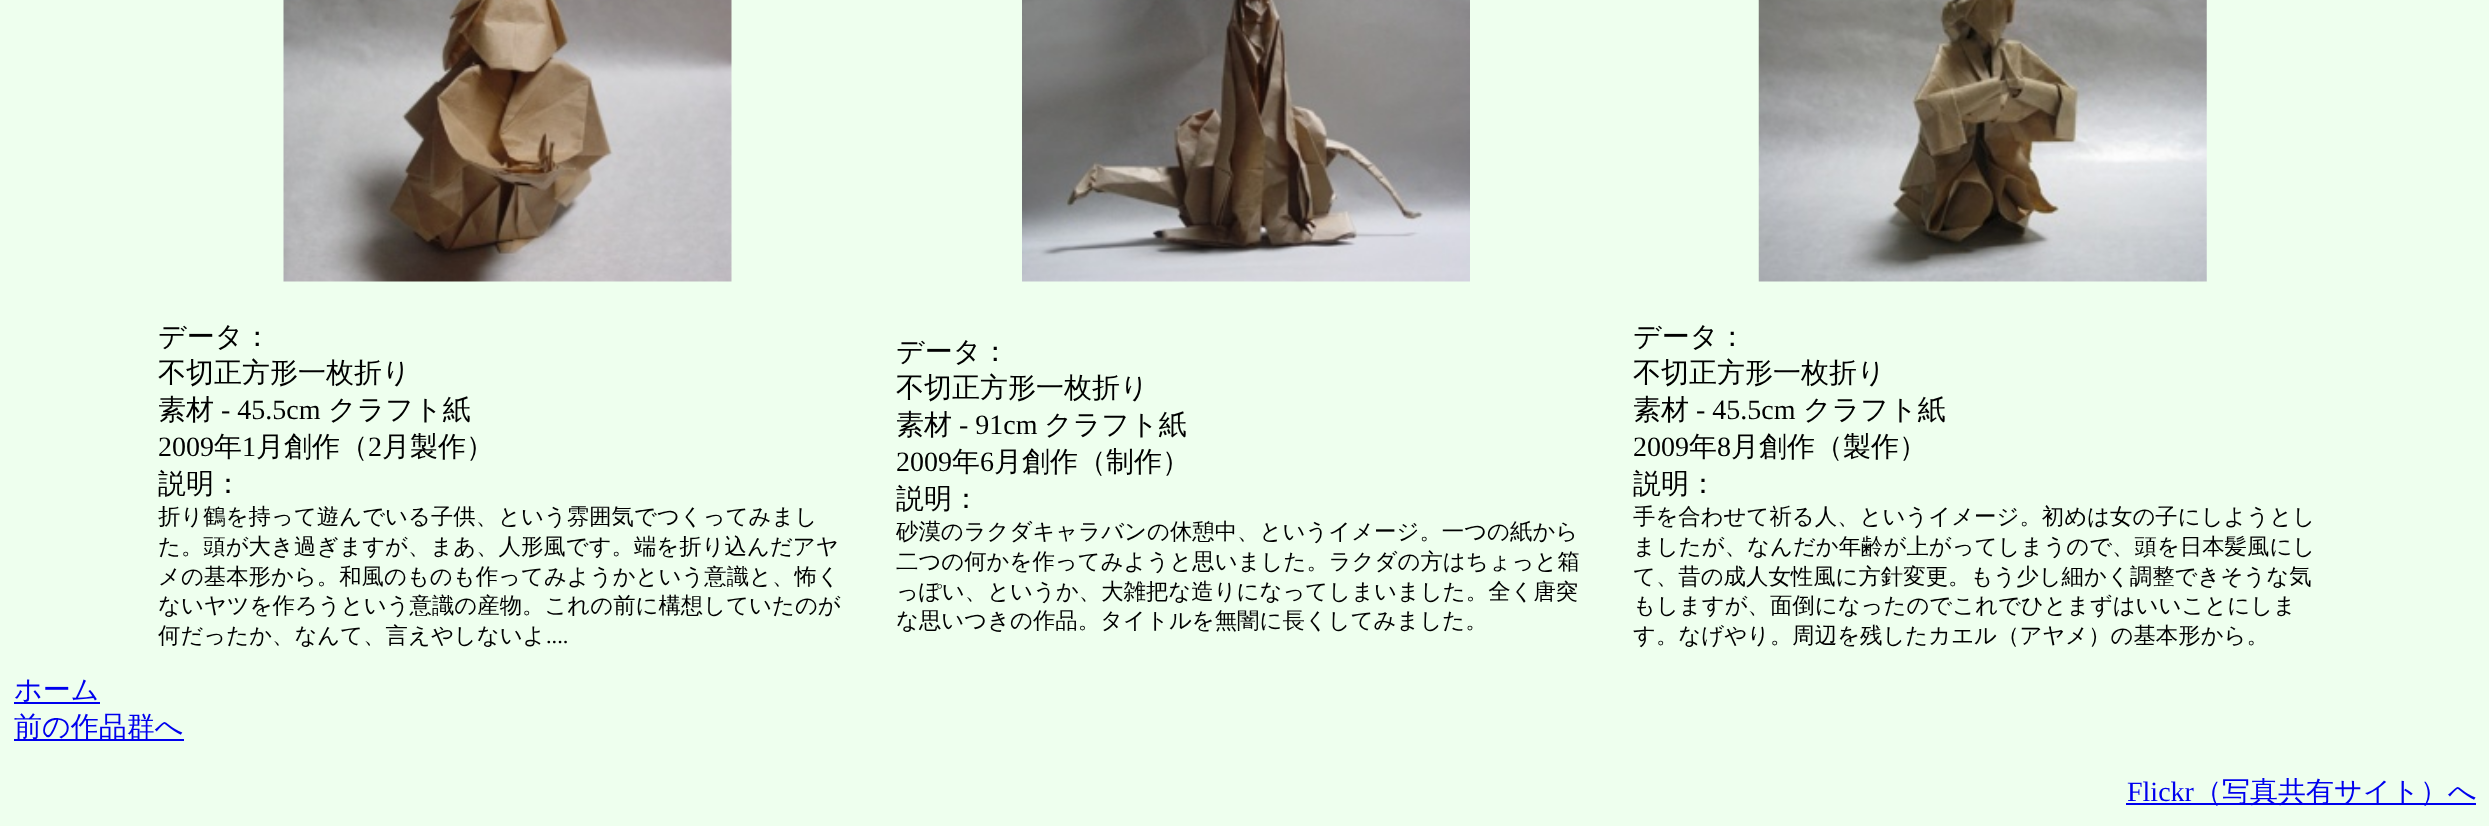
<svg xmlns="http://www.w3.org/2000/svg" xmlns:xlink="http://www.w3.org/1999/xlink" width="2489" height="826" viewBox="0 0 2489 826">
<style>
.cls-1{font:500 28px WenQuanYi Zen Hei;fill:#000000}
.cls-2{font:28px Liberation Serif;fill:#000000}
.cls-3{font:500 22.4px WenQuanYi Zen Hei;fill:#000000}
.cls-4{font:22.4px Liberation Serif;fill:#000000}
.cls-5{font:500 28px WenQuanYi Zen Hei;fill:#0000ee}
.cls-6{font:28px Liberation Serif;fill:#0000ee}
</style>
<rect width="100%" height="100%" fill="#eeffee"/>
<image xlink:href="image0.png" x="283" y="0" width="449" height="282"/>
<image xlink:href="image1.png" x="1022" y="0" width="448" height="282"/>
<image xlink:href="image2.png" x="1758" y="0" width="449" height="282"/>
<rect fill="#0000ee" x="14" y="702" width="86" height="2"/>
<rect fill="#0000ee" x="14" y="739" width="170" height="2"/>
<rect fill="#0000ee" x="2126" y="803" width="350" height="2"/>
<text class="cls-1"><tspan x="158" y="346">データ：</tspan><tspan x="158" y="382">不切正方形一枚折り</tspan><tspan x="158" y="419">素材</tspan></text>
<text class="cls-2" x="221" y="419">- 45.5cm</text>
<text class="cls-1" x="328" y="419">クラフト紙</text>
<text class="cls-2" x="158" y="456">2009</text>
<text class="cls-1" x="214" y="456">年</text>
<text class="cls-2" x="242" y="456">1</text>
<text class="cls-1" x="256" y="456">月創作（</text>
<text class="cls-2" x="368" y="456">2</text>
<text class="cls-1" x="382" y="456">月製作）</text>
<text class="cls-1" x="158" y="493">説明：</text>
<text class="cls-3"><tspan x="158" y="524">折り鶴を持って遊んでいる子供、という雰囲気でつくってみまし</tspan><tspan x="158" y="554">た。頭が大き過ぎますが、まあ、人形風です。端を折り込んだアヤ</tspan><tspan x="158" y="584">メの基本形から。和風のものも作ってみようかという意識と、怖く</tspan><tspan x="158" y="613">ないヤツを作ろうという意識の産物。これの前に構想していたのが</tspan><tspan x="158" y="643">何だったか、なんて、言えやしないよ</tspan></text>
<text class="cls-4" x="546" y="643">....</text>
<text class="cls-1"><tspan x="896" y="361">データ：</tspan><tspan x="896" y="397">不切正方形一枚折り</tspan><tspan x="896" y="434">素材</tspan></text>
<text class="cls-2" x="959" y="434">- 91cm</text>
<text class="cls-1" x="1044" y="434">クラフト紙</text>
<text class="cls-2" x="896" y="471">2009</text>
<text class="cls-1" x="952" y="471">年</text>
<text class="cls-2" x="980" y="471">6</text>
<text class="cls-1" x="994" y="471">月創作（制作）</text>
<text class="cls-1" x="896" y="508">説明：</text>
<text class="cls-3"><tspan x="896" y="539">砂漠のラクダキャラバンの休憩中、というイメージ。一つの紙から</tspan><tspan x="896" y="569">二つの何かを作ってみようと思いました。ラクダの方はちょっと箱</tspan><tspan x="896" y="599">っぽい、というか、大雑把な造りになってしまいました。全く唐突</tspan><tspan x="896" y="628">な思いつきの作品。タイトルを無闇に長くしてみました。</tspan></text>
<text class="cls-1"><tspan x="1633" y="346">データ：</tspan><tspan x="1633" y="382">不切正方形一枚折り</tspan><tspan x="1633" y="419">素材</tspan></text>
<text class="cls-2" x="1696" y="419">- 45.5cm</text>
<text class="cls-1" x="1803" y="419">クラフト紙</text>
<text class="cls-2" x="1633" y="456">2009</text>
<text class="cls-1" x="1689" y="456">年</text>
<text class="cls-2" x="1717" y="456">8</text>
<text class="cls-1" x="1731" y="456">月創作（製作）</text>
<text class="cls-1" x="1633" y="493">説明：</text>
<text class="cls-3"><tspan x="1633" y="524">手を合わせて祈る人、というイメージ。初めは女の子にしようとし</tspan><tspan x="1633" y="554">ましたが、なんだか年齢が上がってしまうので、頭を日本髪風にし</tspan><tspan x="1633" y="584">て、昔の成人女性風に方針変更。もう少し細かく調整できそうな気</tspan><tspan x="1633" y="613">もしますが、面倒になったのでこれでひとまずはいいことにしま</tspan><tspan x="1633" y="643">す。なげやり。周辺を残したカエル（アヤメ）の基本形から。</tspan></text>
<text class="cls-5"><tspan x="14" y="699">ホーム</tspan><tspan x="14" y="736">前の作品群へ</tspan></text>
<text class="cls-6" x="2127" y="801">Flickr</text>
<text class="cls-5" x="2194" y="801">（写真共有サイト）へ</text>
</svg>
